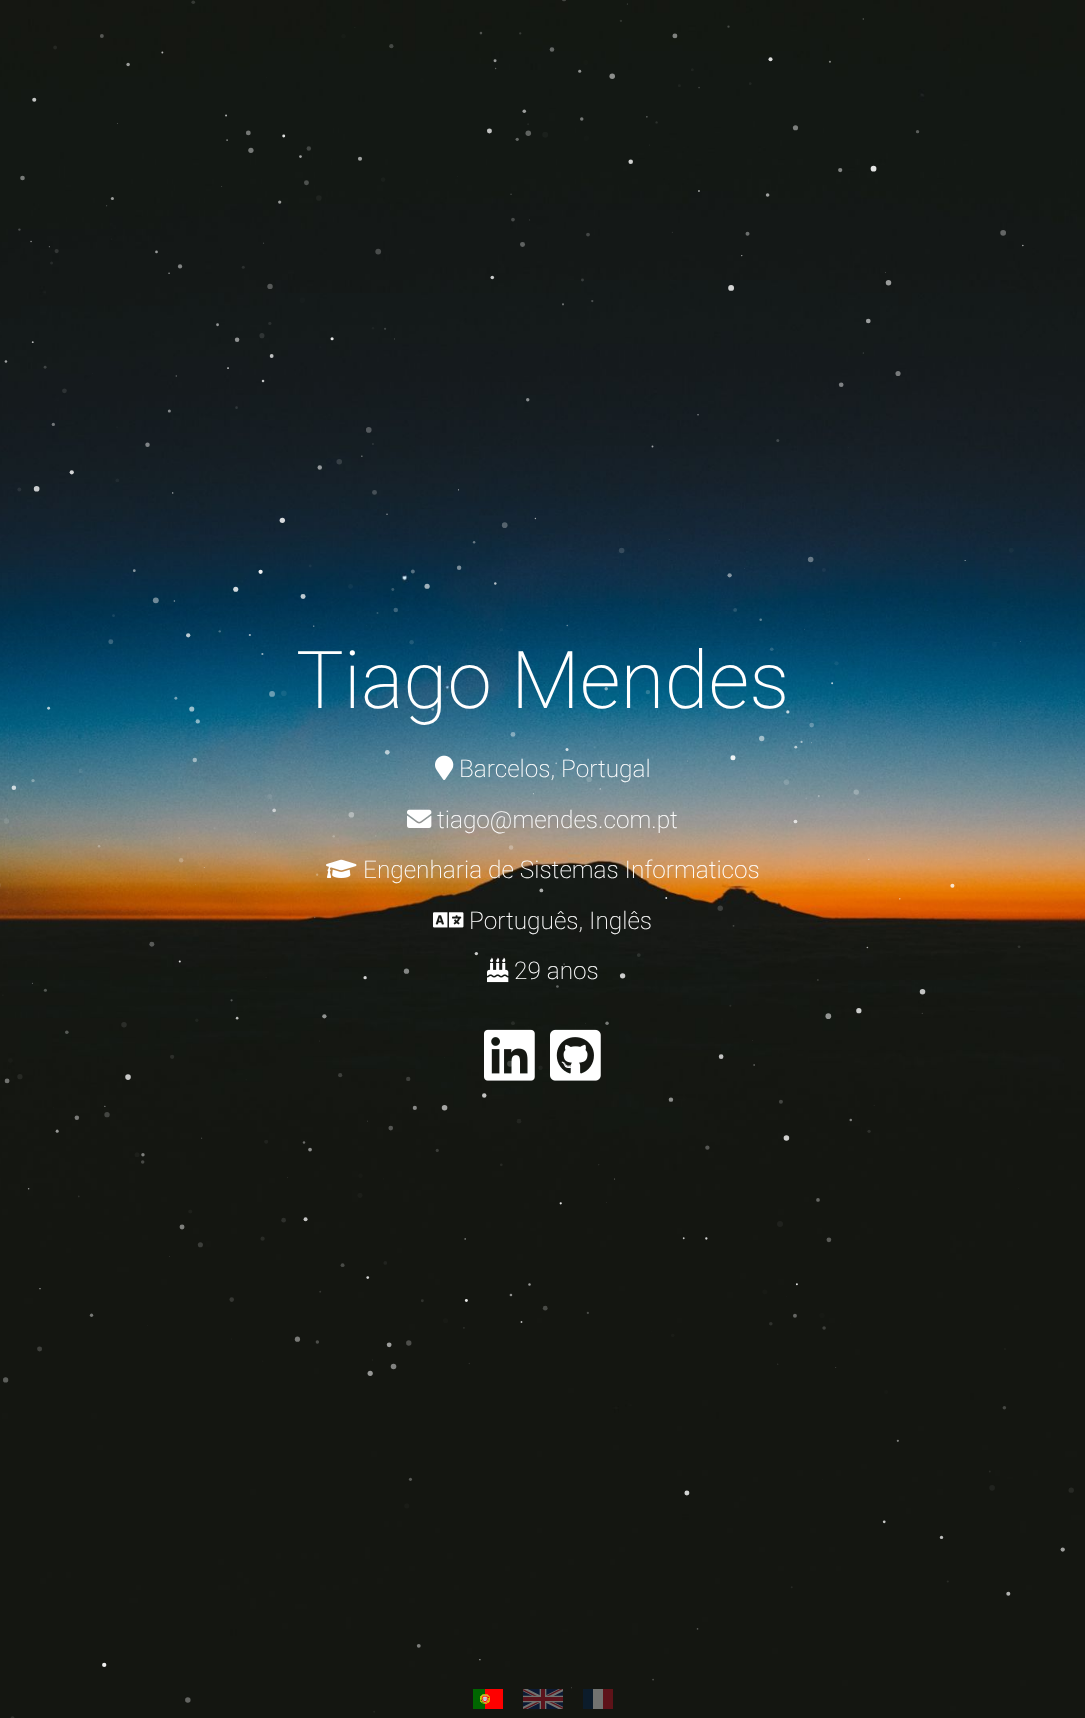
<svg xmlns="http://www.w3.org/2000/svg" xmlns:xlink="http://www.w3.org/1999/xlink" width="1085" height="1718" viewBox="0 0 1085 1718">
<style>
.cls-1{font:200 80px Roboto;fill:#ffffff}
.cls-2{font:200 24.4px Roboto;fill:#ffffff}
</style>
<rect width="100%" height="100%" fill="#ffffff"/>
<image xlink:href="image0.png" x="0" y="0" width="1085" height="1718"/>
<image xlink:href="image1.png" x="0" y="0" width="1074" height="1718"/>
<image xlink:href="image2.png" x="435" y="755" width="19" height="25"/>
<image xlink:href="image3.png" x="407" y="809" width="25" height="19"/>
<image xlink:href="image4.png" x="326" y="859" width="31" height="19"/>
<image xlink:href="image5.png" x="433" y="912" width="31" height="16"/>
<image xlink:href="image6.png" x="487" y="957" width="22" height="26"/>
<image xlink:href="image7.png" x="484" y="1029" width="51" height="52"/>
<image xlink:href="image8.png" x="550" y="1029" width="51" height="52"/>
<image xlink:href="image9.png" x="473" y="1689" width="30" height="20"/>
<image xlink:href="image10.png" x="523" y="1689" width="40" height="20"/>
<image xlink:href="image11.png" x="583" y="1689" width="30" height="20"/>
<text class="cls-1" x="296" y="708">Tiago Mendes</text>
<text class="cls-2" x="459" y="777">Barcelos, Portugal</text>
<text class="cls-2" x="437" y="828">tiago@mendes.com.pt</text>
<text class="cls-2" x="363" y="878">Engenharia de Sistemas Informaticos</text>
<text class="cls-2" x="469" y="929">Português, Inglês</text>
<text class="cls-2" x="514" y="979">29 anos</text>
</svg>
